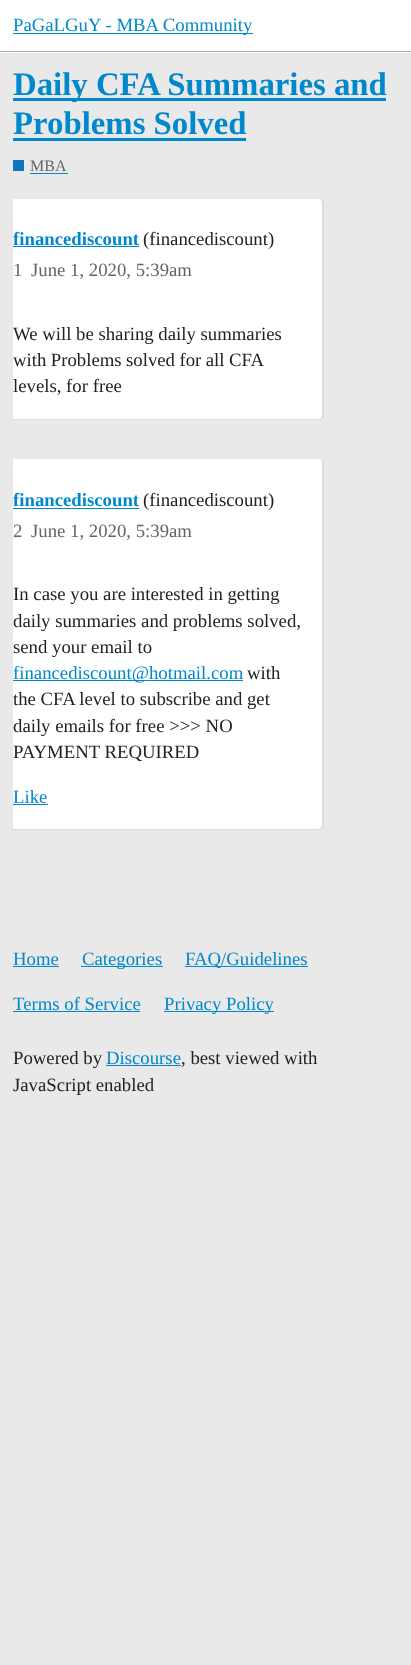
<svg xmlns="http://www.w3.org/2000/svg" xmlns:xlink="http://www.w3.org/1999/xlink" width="411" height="1665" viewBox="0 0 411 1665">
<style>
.cls-1{font:18.75px Liberation Serif;fill:#0088cc}
.cls-2{font:bold 32.8px Liberation Serif;fill:#0088cc}
.cls-3{font:16px Liberation Serif;fill:#646464}
.cls-4{font:bold 18.75px Liberation Serif;fill:#0088cc}
.cls-5{font:18.75px Liberation Serif;fill:#222222}
.cls-6{font:18.75px Liberation Serif;fill:#646464}
</style>
<rect width="100%" height="100%" fill="#e9e9e9"/>
<rect fill="#ffffff" x="0" y="0" width="411" height="53"/>
<rect fill="#afafaf" x="0" y="51" width="411" height="1"/>
<rect fill="#0088cc" x="13" y="33" width="240" height="1"/>
<rect fill="#0088cc" x="13" y="98" width="373" height="3"/>
<rect fill="#0088cc" x="13" y="138" width="233" height="3"/>
<rect fill="#0e76bd" x="13" y="160" width="11" height="11"/>
<rect fill="#0088cc" x="30" y="173" width="38" height="1"/>
<path fill="#ffffff" d="M13 198H319C322 198 324 200 324 203V415C324 418 322 420 319 420H13Z"/>
<path fill="#e9e9e9" d="M12 199V198H319C320 198 321 198 322 199L321 200L319 199Z"/>
<path fill="#222222" fill-opacity="0.15" d="M322 199L324 201V417L322 419L321 418L322 415V202L321 200Z"/>
<path fill="#222222" fill-opacity="0.15" d="M12 419H319C320 419 321 418 321 418L322 419C322 420 320 420 319 420H12Z"/>
<rect fill="#0088cc" x="13" y="246" width="126" height="1"/>
<path fill="#ffffff" d="M13 458H319C322 458 324 460 324 463V825C324 828 322 830 319 830H13Z"/>
<path fill="#e9e9e9" d="M12 459V458H319C320 458 321 458 322 459L321 460L319 459Z"/>
<path fill="#222222" fill-opacity="0.15" d="M322 459L324 461V827L322 829L321 828L322 825V462L321 460Z"/>
<path fill="#222222" fill-opacity="0.15" d="M12 829H319C320 829 321 828 321 828L322 829C322 830 320 830 319 830H12Z"/>
<rect fill="#0088cc" x="13" y="508" width="126" height="1"/>
<rect fill="#0088cc" x="13" y="680" width="230" height="1"/>
<rect fill="#0088cc" x="13" y="804" width="35" height="1"/>
<rect fill="#0088cc" x="13" y="966" width="46" height="1"/>
<rect fill="#0088cc" x="81" y="966" width="82" height="1"/>
<rect fill="#0088cc" x="185" y="966" width="123" height="1"/>
<rect fill="#0088cc" x="13" y="1011" width="127" height="1"/>
<rect fill="#0088cc" x="164" y="1011" width="110" height="1"/>
<rect fill="#0088cc" x="106" y="1065" width="75" height="1"/>
<text class="cls-1" x="13" y="31">PaGaLGuY - MBA Community</text>
<text class="cls-2"><tspan x="13" y="95">Daily CFA Summaries and</tspan><tspan x="13" y="134">Problems Solved</tspan></text>
<text class="cls-3" x="30" y="171">MBA</text>
<text class="cls-4" x="13" y="245">financediscount</text>
<text class="cls-5" x="143" y="245">(financediscount)</text>
<text class="cls-6" x="13" y="276">1</text>
<text class="cls-6" x="31" y="276">June 1, 2020, 5:39am</text>
<text class="cls-5"><tspan x="13" y="340">We will be sharing daily summaries</tspan><tspan x="13" y="366" word-spacing="-0.25">with Problems solved for all CFA</tspan><tspan x="13" y="392">levels, for free</tspan></text>
<text class="cls-4" x="13" y="506">financediscount</text>
<text class="cls-5" x="143" y="506">(financediscount)</text>
<text class="cls-6" x="13" y="537">2</text>
<text class="cls-6" x="31" y="537">June 1, 2020, 5:39am</text>
<text class="cls-5"><tspan x="13" y="600">In case you are interested in getting</tspan><tspan x="13" y="627">daily summaries and problems solved,</tspan><tspan x="13" y="653">send your email to</tspan></text>
<text class="cls-1" x="13" y="679">financediscount@hotmail.com</text>
<text class="cls-5" x="247" y="679">with</text>
<text class="cls-5"><tspan x="13" y="705">the CFA level to subscribe and get</tspan><tspan x="13" y="732">daily emails for free &gt;&gt;&gt; NO</tspan><tspan x="13" y="758">PAYMENT REQUIRED</tspan></text>
<text class="cls-1" x="13" y="803">Like</text>
<text class="cls-1" x="13" y="965">Home</text>
<text class="cls-1" x="82" y="965">Categories</text>
<text class="cls-1" x="185" y="965">FAQ/Guidelines</text>
<text class="cls-1" x="13" y="1010">Terms of Service</text>
<text class="cls-1" x="164" y="1010">Privacy Policy</text>
<text class="cls-5" x="13" y="1064">Powered by</text>
<text class="cls-1" x="106" y="1064">Discourse</text>
<text class="cls-5" x="181" y="1064">, best viewed with</text>
<text class="cls-5" x="13" y="1091">JavaScript enabled</text>
</svg>
